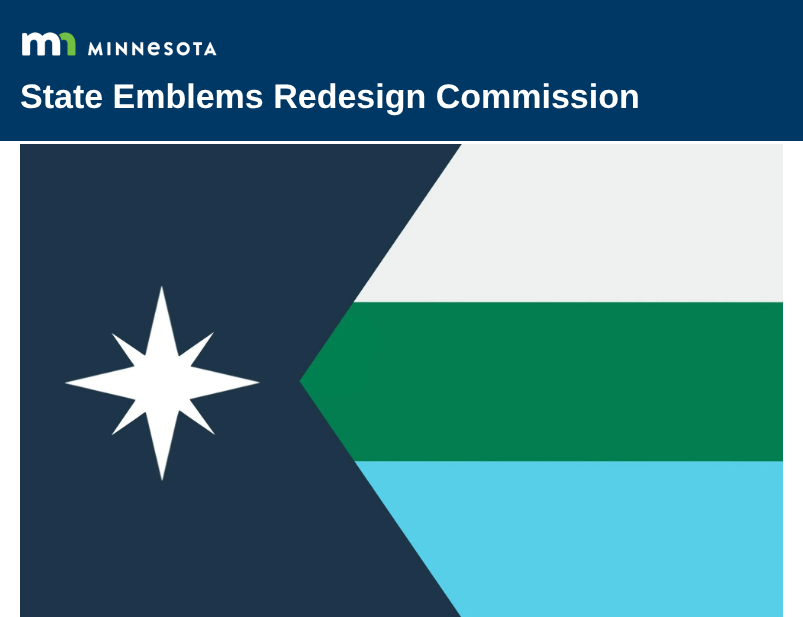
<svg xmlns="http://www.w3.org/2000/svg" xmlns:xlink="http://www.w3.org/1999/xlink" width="803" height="617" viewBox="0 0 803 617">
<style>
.cls-1{font:bold 34px Liberation Sans;fill:#ffffff}
</style>
<rect width="100%" height="100%" fill="#ffffff"/>
<rect fill="#003865" x="0" y="0" width="803" height="141"/>
<image xlink:href="image0.png" x="20" y="31" width="200" height="27"/>
<image xlink:href="image1.png" x="20" y="144" width="763" height="473"/>
<text class="cls-1" x="20" y="108">State Emblems Redesign Commission</text>
</svg>
